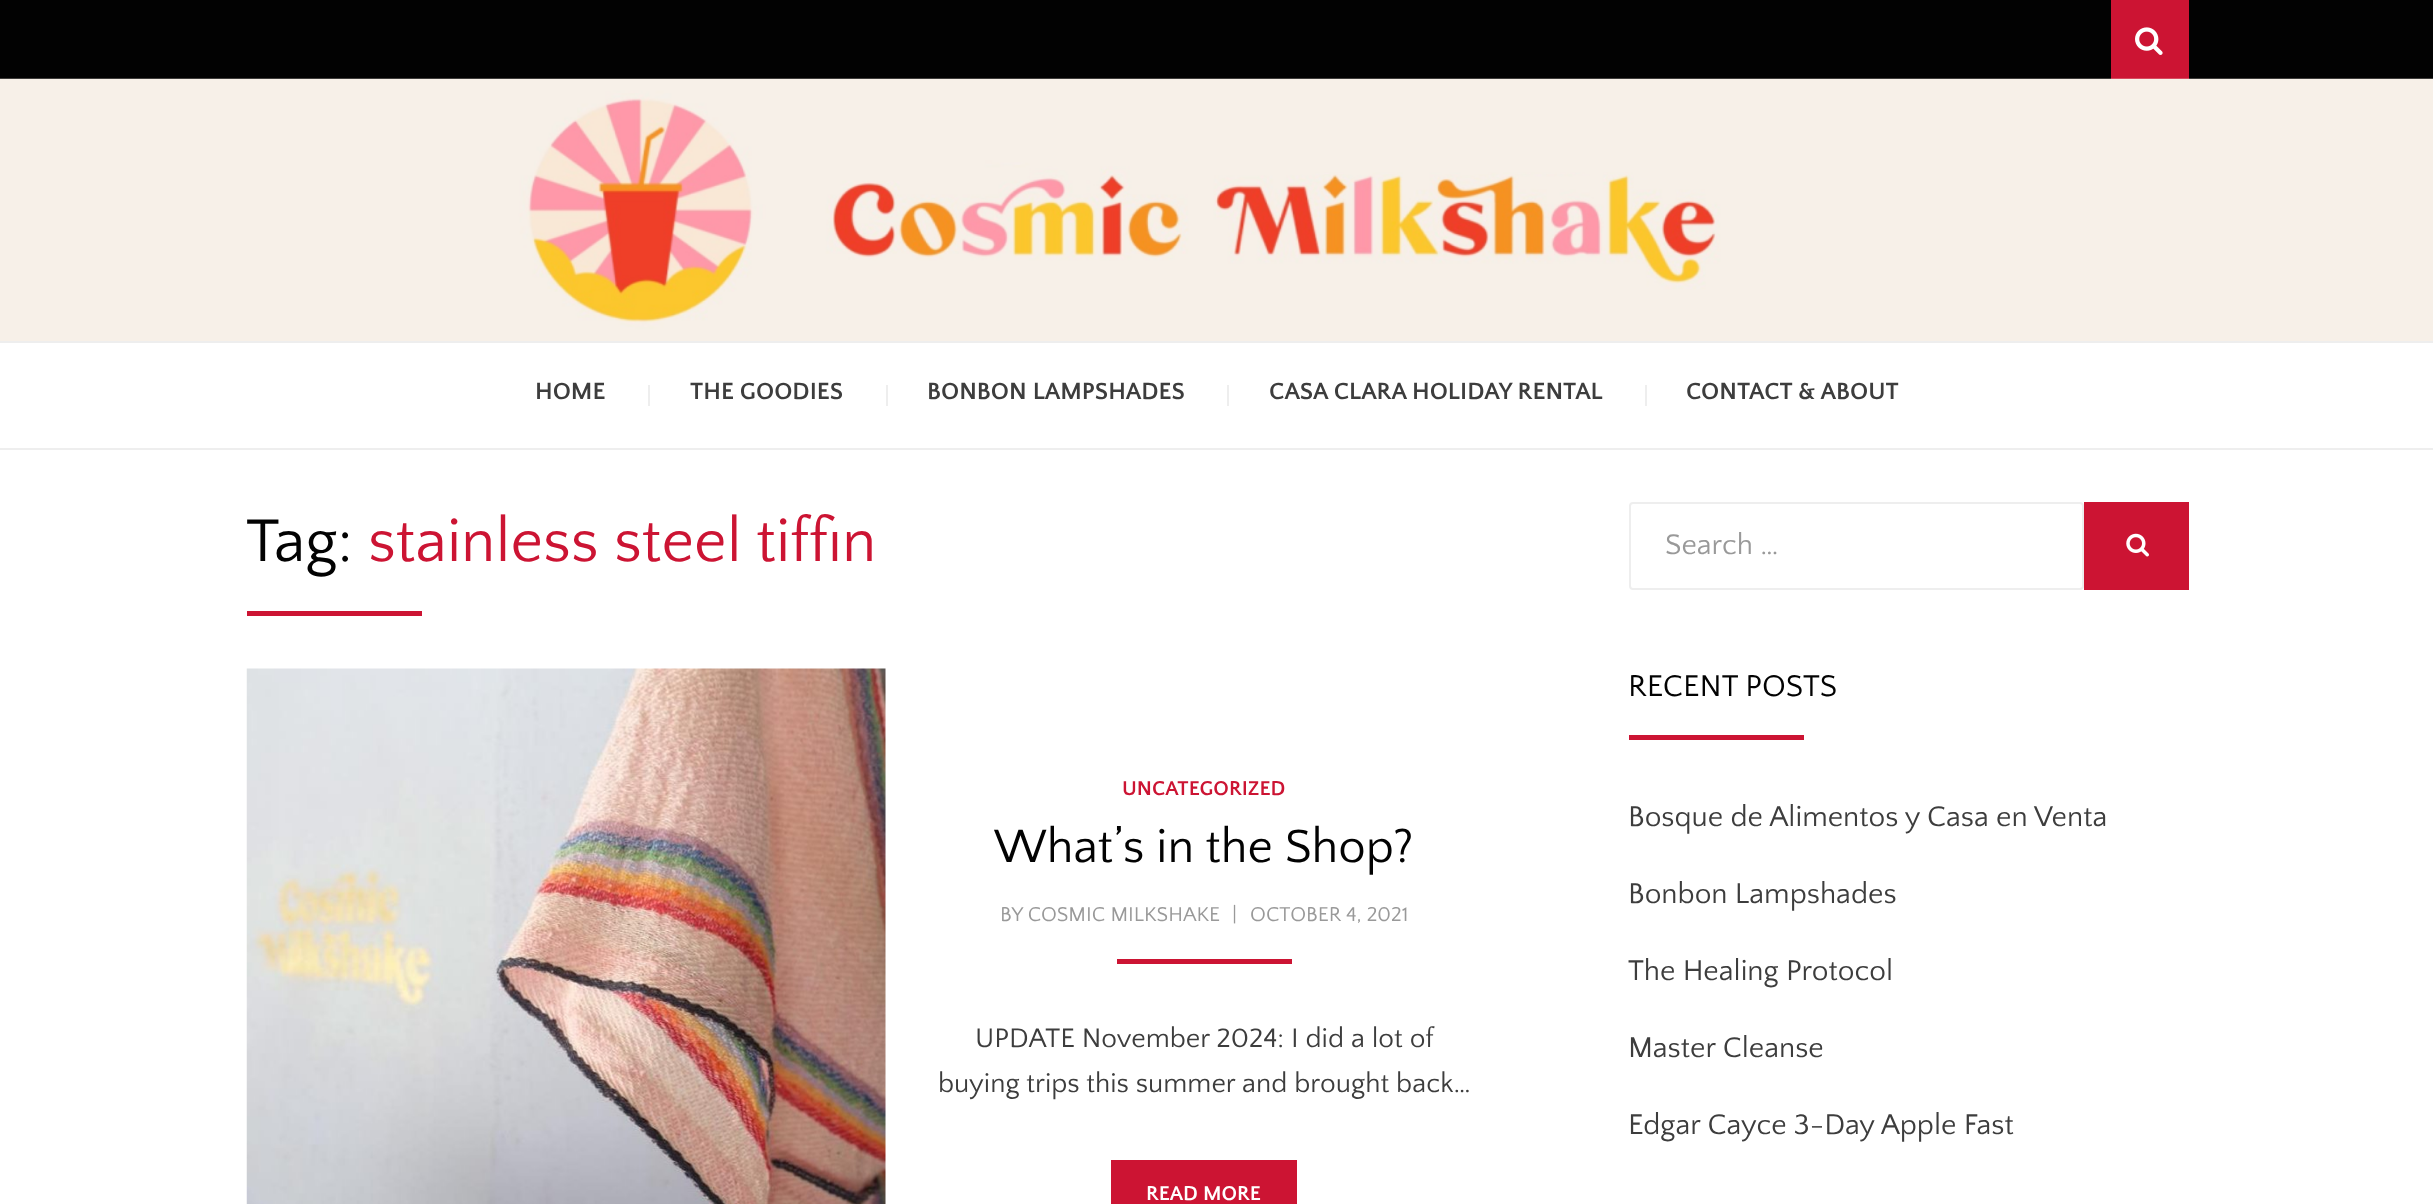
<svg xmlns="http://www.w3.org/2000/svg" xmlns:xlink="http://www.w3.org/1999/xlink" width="2433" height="1204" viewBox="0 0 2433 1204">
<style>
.cls-1{font:bold 24.5px Quattrocento Sans;fill:#3d3d3d}
.cls-2{font:63px Quattrocento Sans;fill:#020202}
.cls-3{font:63px Quattrocento Sans;fill:#cc1433}
.cls-4{font:bold 21px Quattrocento Sans;fill:#cc1433}
.cls-5{font:49px Quattrocento Sans;fill:#020202}
.cls-6{font:21px Quattrocento Sans;fill:#999999}
.cls-7{font:28px Quattrocento Sans;fill:#3d3d3d}
.cls-8{font:bold 21px Quattrocento Sans;fill:#ffffff}
.cls-9{font:29.75px Quattrocento Sans;fill:#999999}
.cls-10{font:31.5px Quattrocento Sans;fill:#020202}
.cls-11{font:29.75px Quattrocento Sans;fill:#3d3d3d}
</style>
<rect width="100%" height="100%" fill="#ffffff"/>
<rect fill="#020202" x="0" y="0" width="2433" height="79"/>
<rect fill="#cc1433" x="2111" y="0" width="78" height="79"/>
<image xlink:href="image0.png" x="2135" y="27" width="28" height="28"/>
<image xlink:href="image1.png" x="0" y="78" width="2433" height="263"/>
<rect fill="#eeeeee" x="0" y="341" width="2433" height="2"/>
<rect fill="#eeeeee" x="0" y="448" width="2433" height="2"/>
<rect fill="#eeeeee" x="648" y="385" width="2" height="21"/>
<rect fill="#eeeeee" x="886" y="385" width="2" height="21"/>
<rect fill="#eeeeee" x="1227" y="385" width="2" height="21"/>
<rect fill="#eeeeee" x="1645" y="385" width="2" height="21"/>
<rect fill="#cc1433" x="247" y="611" width="175" height="5"/>
<image xlink:href="image2.png" x="246" y="668" width="640" height="536"/>
<rect fill="#cc1433" x="1117" y="959" width="175" height="5"/>
<rect fill="#cc1433" x="1111" y="1160" width="186" height="44"/>
<rect fill="none" stroke="#eeeeee" stroke-width="2" x="1630" y="503" width="453" height="86" rx="3"/>
<rect fill="#cc1433" x="2084" y="502" width="105" height="88"/>
<image xlink:href="image3.png" x="2126" y="533" width="23" height="24"/>
<rect fill="#cc1433" x="1629" y="735" width="175" height="5"/>
<text class="cls-1" x="535" y="399">HOME</text>
<text class="cls-1" x="690" y="399">THE GOODIES</text>
<text class="cls-1" x="927" y="399">BONBON LAMPSHADES</text>
<text class="cls-1" x="1269" y="399">CASA CLARA HOLIDAY RENTAL</text>
<text class="cls-1" x="1686" y="399">CONTACT &amp; ABOUT</text>
<text class="cls-2" x="246" y="561">Tag:</text>
<text class="cls-3" x="368" y="561">stainless steel tiffin</text>
<text class="cls-4" x="1122" y="795">UNCATEGORIZED</text>
<text class="cls-5" x="994" y="862">What’s in the Shop?</text>
<text class="cls-6" x="1000" y="921">BY COSMIC MILKSHAKE</text>
<text class="cls-6" x="1232" y="921">|</text>
<text class="cls-6" x="1250" y="921">OCTOBER 4, 2021</text>
<text class="cls-7" x="975" y="1047">UPDATE November 2024: I did a lot of</text>
<text class="cls-7" x="938" y="1092">buying trips this summer and brought back…</text>
<text class="cls-8" x="1146" y="1200">READ MORE</text>
<text class="cls-9" x="1665" y="554">Search …</text>
<text class="cls-10" x="1628" y="696">RECENT POSTS</text>
<text class="cls-11" x="1628" y="826">Bosque de Alimentos y Casa en Venta</text>
<text class="cls-11" x="1628" y="903">Bonbon Lampshades</text>
<text class="cls-11" x="1628" y="980">The Healing Protocol</text>
<text class="cls-11" x="1628" y="1057">Master Cleanse</text>
<text class="cls-11" x="1628" y="1134">Edgar Cayce 3-Day Apple Fast</text>
</svg>
